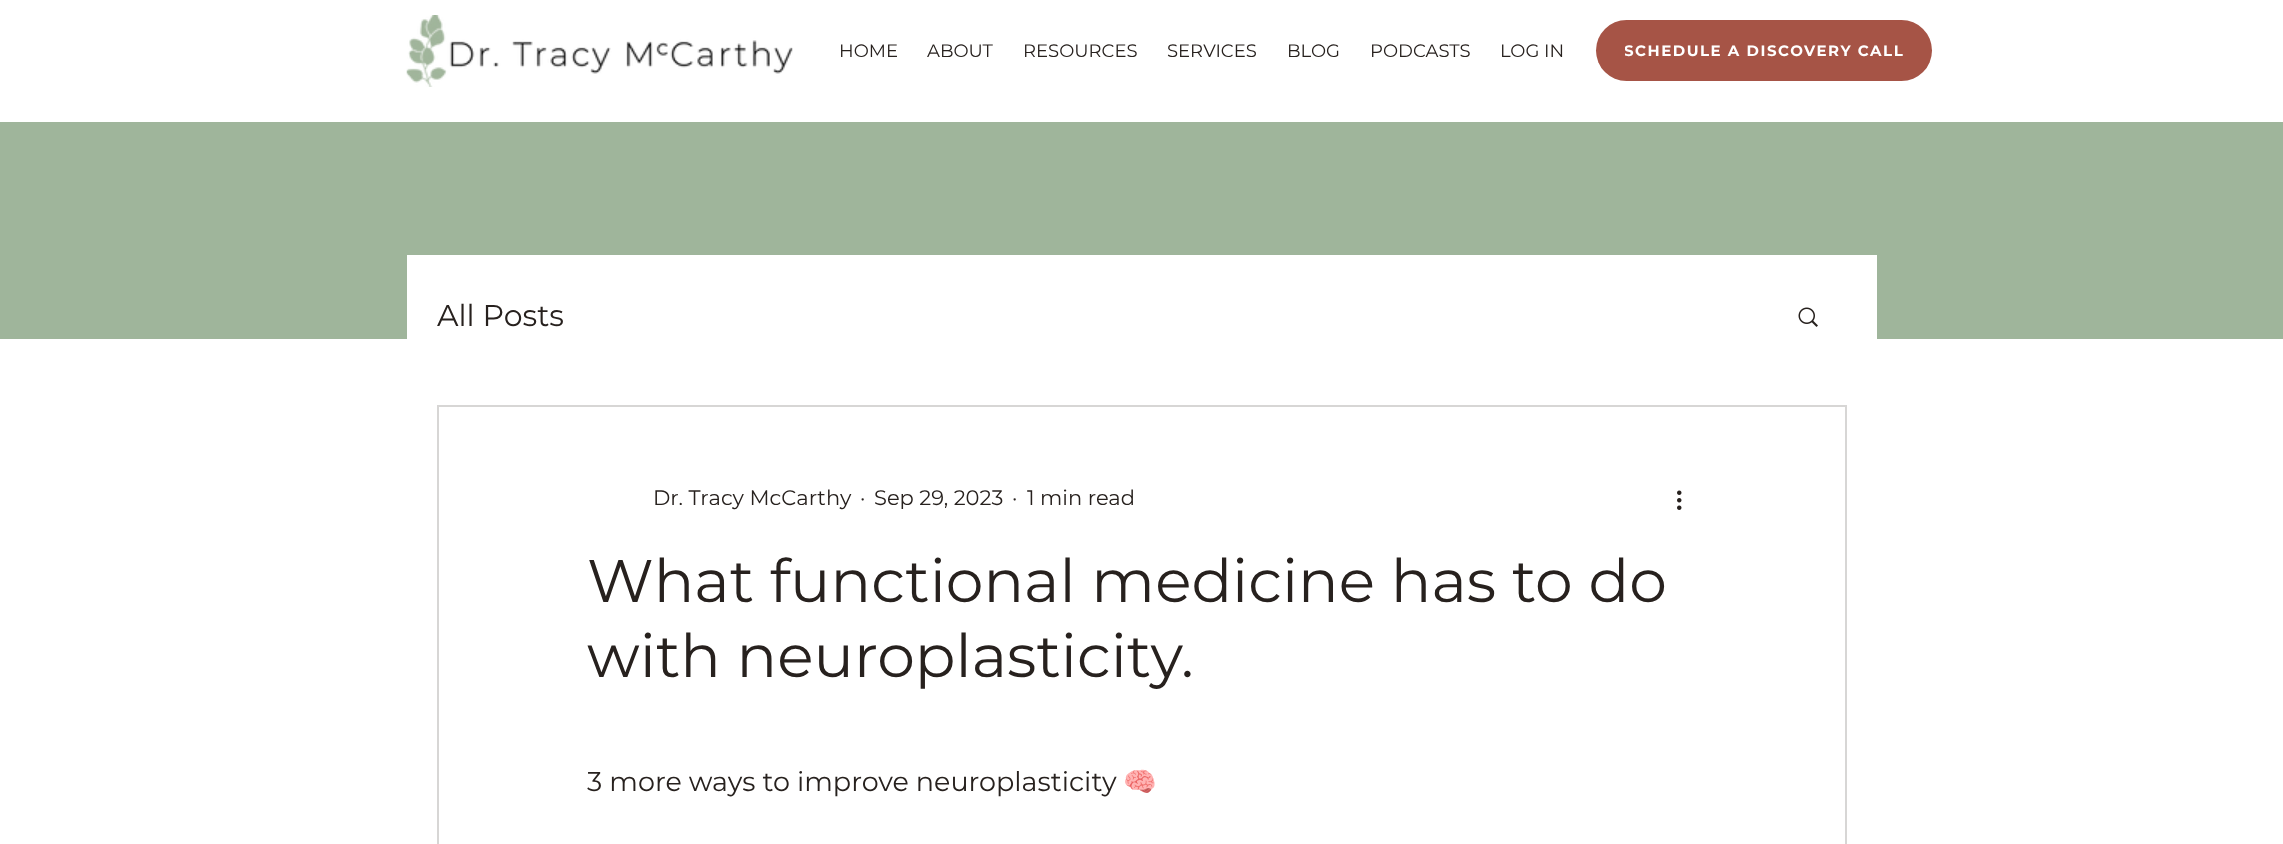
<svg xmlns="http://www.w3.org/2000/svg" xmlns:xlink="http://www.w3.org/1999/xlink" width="2283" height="844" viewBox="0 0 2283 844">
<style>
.cls-1{font:18px Montserrat;fill:#27211e}
.cls-2{font:bold 15px Montserrat;letter-spacing:1.5px;fill:#ffffff}
.cls-3{font:30px Montserrat;fill:#27211e}
.cls-4{font:21px Montserrat;fill:#27211e}
.cls-5{font:60px Montserrat;fill:#27211e}
.cls-6{font:27px Montserrat;fill:#27211e}
.cls-7{font:27px Noto Color Emoji;fill:#27211e}
</style>
<defs>
<clipPath id="clip1"><rect x="1625" y="41" width="279" height="19"/></clipPath>
</defs>
<rect width="100%" height="100%" fill="#ffffff"/>
<image xlink:href="image0.png" x="406" y="15" width="387" height="72"/>
<rect fill="#a65446" x="1596" y="20" width="336" height="61" rx="30.5"/>
<rect fill="#9fb59b" x="0" y="122" width="2283" height="217"/>
<rect fill="#ffffff" x="407" y="255" width="1470" height="84"/>
<image xlink:href="image1.png" x="1798" y="307" width="20" height="20"/>
<rect fill="none" stroke="#d7d6d5" stroke-width="2" x="438" y="406" width="1408" height="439"/>
<image xlink:href="image2.png" x="1677" y="490" width="5" height="20"/>
<text class="cls-1" x="839" y="57">HOME</text>
<text class="cls-1" x="927" y="57">ABOUT</text>
<text class="cls-1" x="1023" y="57">RESOURCES</text>
<text class="cls-1" x="1167" y="57">SERVICES</text>
<text class="cls-1" x="1287" y="57">BLOG</text>
<text class="cls-1" x="1370" y="57">PODCASTS</text>
<text class="cls-1" x="1500" y="57">LOG IN</text>
<g clip-path="url(#clip1)">
<text class="cls-2" x="1624" y="56">SCHEDULE A DISCOVERY CALL</text>
</g>
<text class="cls-3" x="437" y="326">All Posts</text>
<text class="cls-4" x="653" y="505">Dr. Tracy McCarthy</text>
<text class="cls-4" x="860" y="505">·</text>
<text class="cls-4" x="874" y="505">Sep 29, 2023</text>
<text class="cls-4" x="1012" y="505">·</text>
<text class="cls-4" x="1027" y="505">1 min read</text>
<text class="cls-5"><tspan x="587" y="602">What functional medicine has to do</tspan><tspan x="587" y="677">with neuroplasticity.</tspan></text>
<text class="cls-6" x="587" y="791">3 more ways to improve neuroplasticity</text>
<text class="cls-7" x="1123" y="791">🧠</text>
</svg>
